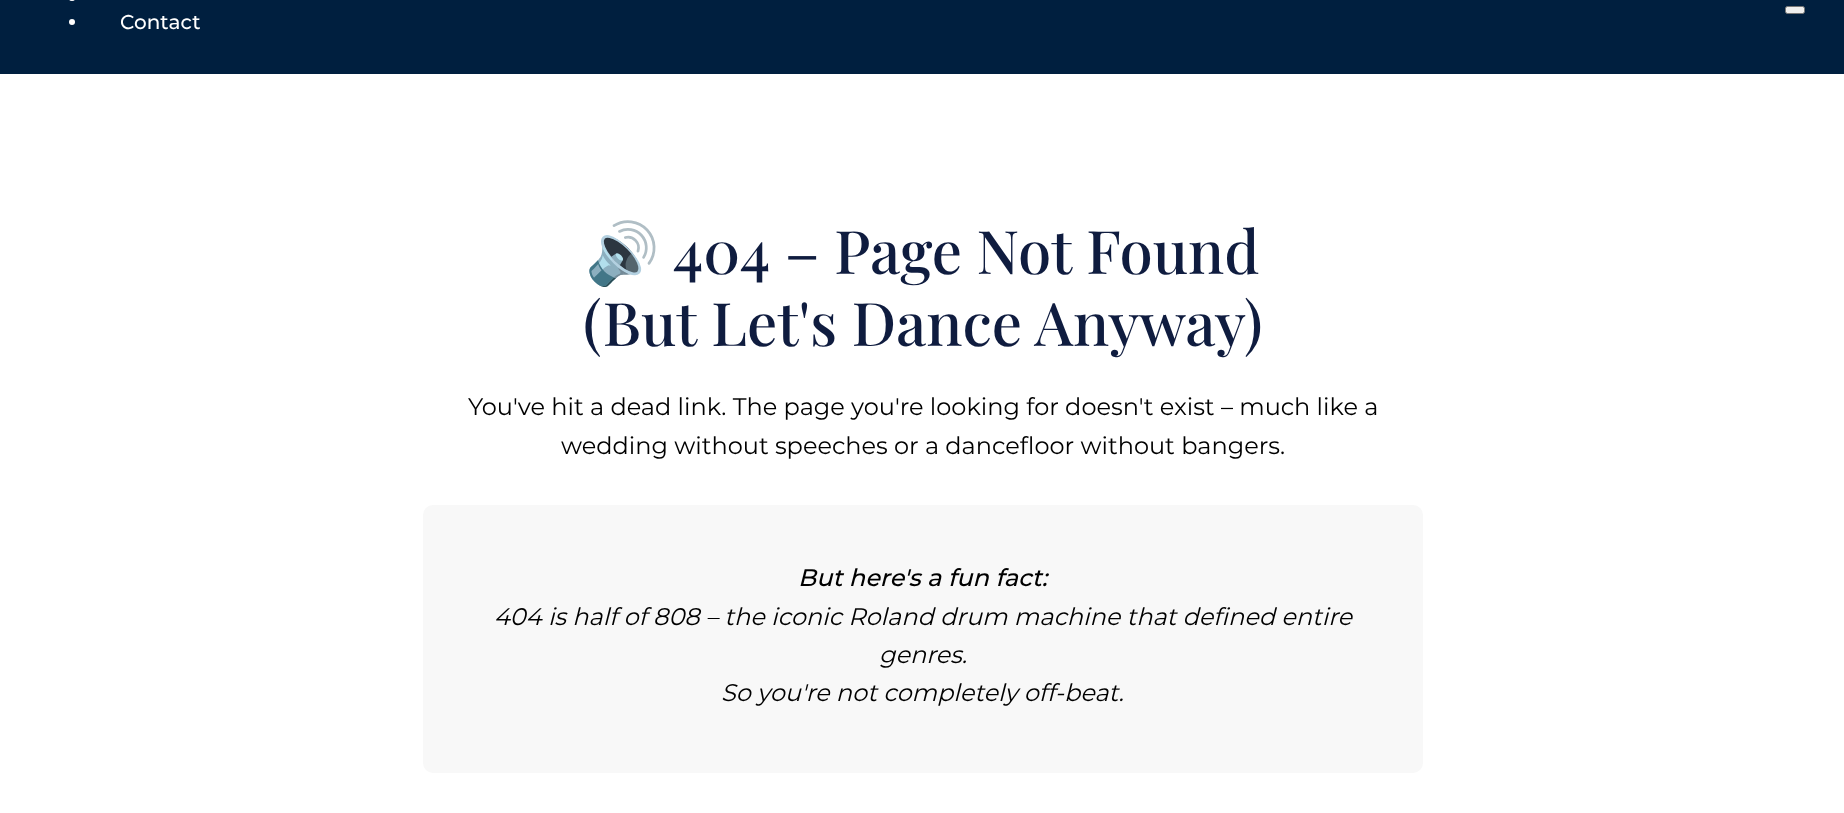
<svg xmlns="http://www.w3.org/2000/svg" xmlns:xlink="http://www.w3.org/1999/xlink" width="1844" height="813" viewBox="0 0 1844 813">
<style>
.cls-1{font:500 20px Montserrat;fill:#ffffff}
.cls-2{font:bold 60px Noto Color Emoji;fill:#0f1c3f}
.cls-3{font:500 60px Playfair Display;fill:#0f1c3f}
.cls-4{font:24px Montserrat;fill:#000000}
.cls-5{font:italic 500 24px Montserrat;fill:#000000}
.cls-6{font:italic 24px Montserrat;fill:#000000}
</style>
<rect width="100%" height="100%" fill="#ffffff"/>
<rect fill="#001f3f" x="0" y="0" width="1844" height="74"/>
<rect fill="#efefef" stroke="#767676" x="1785.5" y="6.5" width="19" height="7" rx="2"/>
<rect fill="#ffffff" x="69" y="-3" width="6" height="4" rx="3"/>
<circle fill="#ffffff" cx="72" cy="22" r="3"/>
<rect fill="#f8f8f8" x="423" y="505" width="1000" height="268" rx="10"/>
<text class="cls-1" x="120" y="29">Contact</text>
<text class="cls-2" x="585" y="274">🔊</text>
<text class="cls-3" x="673" y="274">404 – Page Not Found</text>
<text class="cls-3" x="583" y="346">(But Let's Dance Anyway)</text>
<text class="cls-4" x="468" y="415">You've hit a dead link. The page you're looking for doesn't exist – much like a</text>
<text class="cls-4" x="561" y="454">wedding without speeches or a dancefloor without bangers.</text>
<text class="cls-5" x="798" y="586">But here's a fun fact:</text>
<text class="cls-6" x="494" y="625">404 is half of 808 – the iconic Roland drum machine that defined entire</text>
<text class="cls-6" x="879" y="663">genres.</text>
<text class="cls-6" x="721" y="701">So you're not completely off-beat.</text>
</svg>
